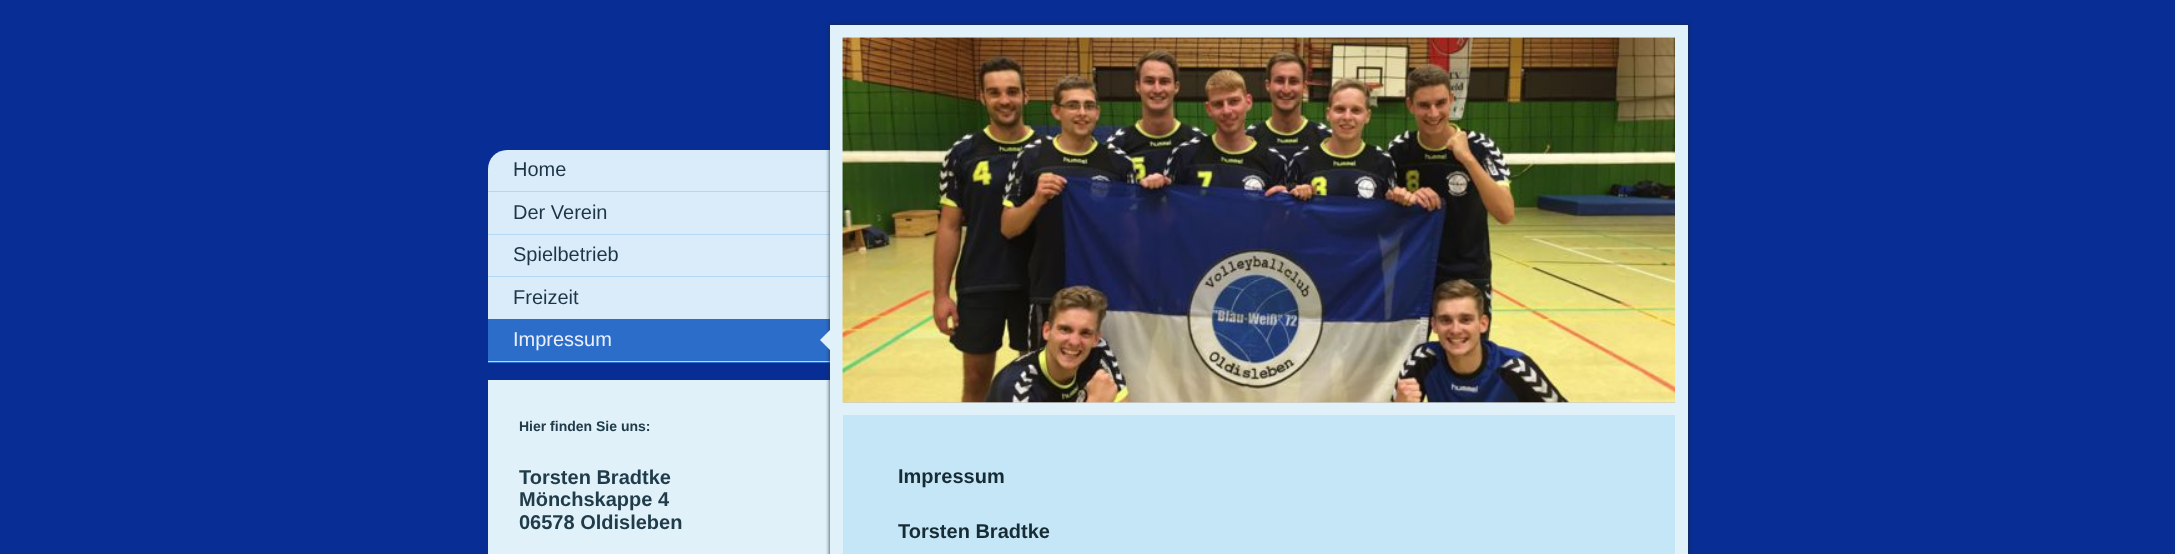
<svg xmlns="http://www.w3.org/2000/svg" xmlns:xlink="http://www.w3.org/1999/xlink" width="2175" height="554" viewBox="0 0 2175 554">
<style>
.cls-1{font:20px Liberation Sans;fill:#1d3547}
.cls-2{font:20px Liberation Sans;fill:#eaf0fa}
.cls-3{font:bold 14px Liberation Sans;fill:#203c4a}
.cls-4{font:bold 20px Liberation Sans;fill:#203c4a}
.cls-5{font:bold 20px Liberation Sans;fill:#172b34}
</style>
<rect width="100%" height="100%" fill="#082d94"/>
<path fill="#daecf9" d="M507 150H830V363H488V169C488 158.5 496.5 150 507 150Z"/>
<rect fill="#b3d8f3" x="488" y="191" width="342" height="1"/>
<rect fill="#b3d8f3" x="488" y="234" width="342" height="1"/>
<rect fill="#b3d8f3" x="488" y="276" width="342" height="1"/>
<rect fill="#2d6dca" x="488" y="319" width="342" height="44"/>
<rect fill="#b3d8f3" x="488" y="361" width="342" height="1"/>
<rect fill="#e0f1f9" x="488" y="380" width="342" height="174"/>
<rect fill="#172b34" filter="blur(2px)" x="830" y="25" width="858" height="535"/>
<rect fill="none" stroke="#e0f1f9" stroke-width="13" x="836.5" y="31.5" width="845" height="377"/>
<path fill="#e0f1f9" d="M831 329V351L820 340Z"/>
<rect fill="#c4e6f7" x="843" y="415" width="832" height="139"/>
<image xlink:href="image0.png" x="842" y="37" width="833" height="366"/>
<rect fill="#cccccc" x="843" y="402" width="832" height="1"/>
<image xlink:href="image1.png" x="842" y="37" width="833" height="366"/>
<rect fill="#e0f1f9" x="1675" y="415" width="13" height="139"/>
<rect fill="#e0f1f9" x="830" y="415" width="13" height="139"/>
<text class="cls-1" x="513" y="176">Home</text>
<text class="cls-1" x="513" y="219">Der Verein</text>
<text class="cls-1" x="513" y="261">Spielbetrieb</text>
<text class="cls-1" x="513" y="304">Freizeit</text>
<text class="cls-2" x="513" y="346">Impressum</text>
<text class="cls-3" x="519" y="431">Hier finden Sie uns:</text>
<text class="cls-4"><tspan x="519" y="484">Torsten Bradtke</tspan><tspan x="519" y="506">Mönchskappe 4</tspan><tspan x="519" y="529">06578 Oldisleben</tspan></text>
<text class="cls-5" x="898" y="483">Impressum</text>
<text class="cls-5" x="898" y="538">Torsten Bradtke</text>
</svg>
